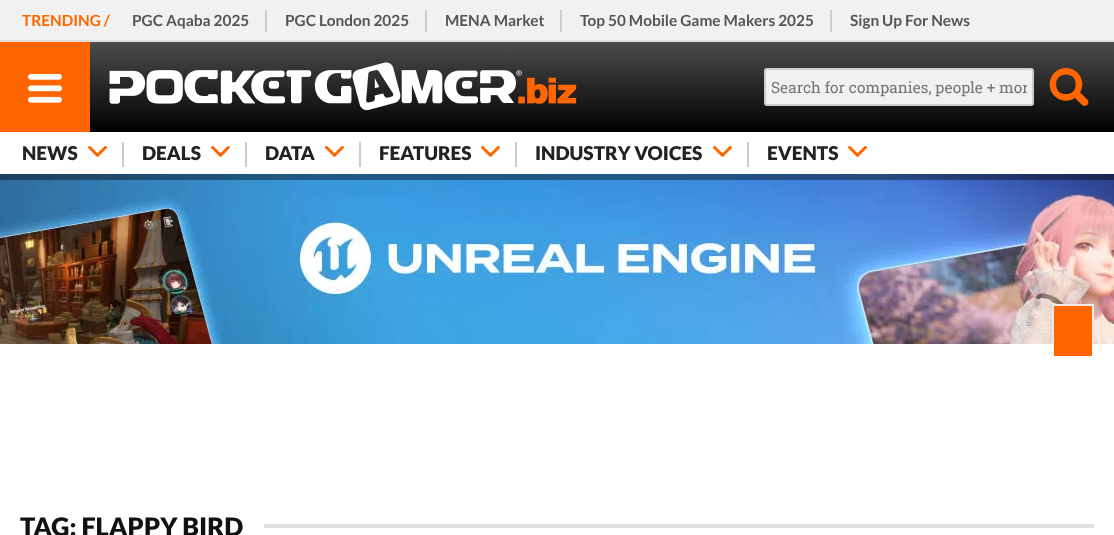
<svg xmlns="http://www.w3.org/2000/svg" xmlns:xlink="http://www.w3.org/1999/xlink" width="1114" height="535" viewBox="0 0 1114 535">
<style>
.cls-1{font:bold 15.4px Lato;fill:#ff6600}
.cls-2{font:bold 15.4px Lato;fill:#555555}
.cls-3{font:15.4px Roboto Slab;fill:#757575}
.cls-4{font:900 19px Lato;fill:#222222}
.cls-5{font:900 25.5px Lato;fill:#111111}
</style>
<defs>
<linearGradient id="g1" gradientUnits="userSpaceOnUse" x1="557" y1="132" x2="557" y2="42"><stop offset="0" stop-color="#000000"/><stop offset="1" stop-color="#4c4c4c"/></linearGradient>
<clipPath id="clip1"><rect x="771" y="77" width="256" height="20"/></clipPath>
</defs>
<rect width="100%" height="100%" fill="#f1f1f1"/>
<image xlink:href="image4.png" x="0" y="174" width="1114" height="170"/>
<rect fill="#000000" fill-opacity="0.4" x="0" y="174" width="1114" height="6"/>
<rect fill="#dddddd" x="0" y="40" width="1114" height="2"/>
<rect fill="#cccccc" x="265" y="10" width="2" height="22"/>
<rect fill="#cccccc" x="425" y="10" width="2" height="22"/>
<rect fill="#cccccc" x="560" y="10" width="2" height="22"/>
<rect fill="#cccccc" x="830" y="10" width="2" height="22"/>
<rect fill="url(#g1)" x="90" y="42" width="1024" height="90"/>
<rect fill="#ff6600" x="0" y="42" width="90" height="90"/>
<image xlink:href="image0.png" x="28" y="74" width="34" height="29"/>
<image xlink:href="image1.png" x="109" y="62" width="468" height="49"/>
<rect fill="#f1f1f1" stroke="#cccccc" stroke-width="2" x="765" y="69" width="268" height="36" rx="2"/>
<image xlink:href="image2.png" x="1049" y="68" width="40" height="38"/>
<rect fill="#ffffff" x="0" y="132" width="1114" height="42"/>
<image xlink:href="image3.png" x="88" y="146" width="19" height="11"/>
<rect fill="#cccccc" x="122" y="142" width="2" height="25"/>
<image xlink:href="image3.png" x="211" y="146" width="19" height="11"/>
<rect fill="#cccccc" x="245" y="142" width="2" height="25"/>
<image xlink:href="image3.png" x="325" y="146" width="19" height="11"/>
<rect fill="#cccccc" x="359" y="142" width="2" height="25"/>
<image xlink:href="image3.png" x="481" y="146" width="19" height="11"/>
<rect fill="#cccccc" x="515" y="142" width="2" height="25"/>
<image xlink:href="image3.png" x="713" y="146" width="19" height="11"/>
<rect fill="#cccccc" x="747" y="142" width="2" height="25"/>
<image xlink:href="image3.png" x="848" y="146" width="19" height="11"/>
<rect fill="#eaeaea" x="1052" y="304" width="42" height="40"/>
<rect fill="#ffffff" x="0" y="344" width="1114" height="191"/>
<rect fill="#ff6600" x="1054" y="306" width="38" height="50"/>
<rect fill="#e1e1e1" x="264" y="524" width="830" height="4"/>
<text class="cls-1" x="22" y="26">TRENDING /</text>
<text class="cls-2" x="132" y="26">PGC Aqaba 2025</text>
<text class="cls-2" x="285" y="26">PGC London 2025</text>
<text class="cls-2" x="445" y="26">MENA Market</text>
<text class="cls-2" x="580" y="26">Top 50 Mobile Game Makers 2025</text>
<text class="cls-2" x="850" y="26">Sign Up For News</text>
<g clip-path="url(#clip1)">
<text class="cls-3" x="771" y="93">Search for companies, people + mor</text>
</g>
<text class="cls-4" x="22" y="160">NEWS</text>
<text class="cls-4" x="142" y="160">DEALS</text>
<text class="cls-4" x="265" y="160">DATA</text>
<text class="cls-4" x="379" y="160">FEATURES</text>
<text class="cls-4" x="535" y="160">INDUSTRY VOICES</text>
<text class="cls-4" x="767" y="160">EVENTS</text>
<text class="cls-5" x="20" y="536">TAG: FLAPPY BIRD</text>
</svg>
